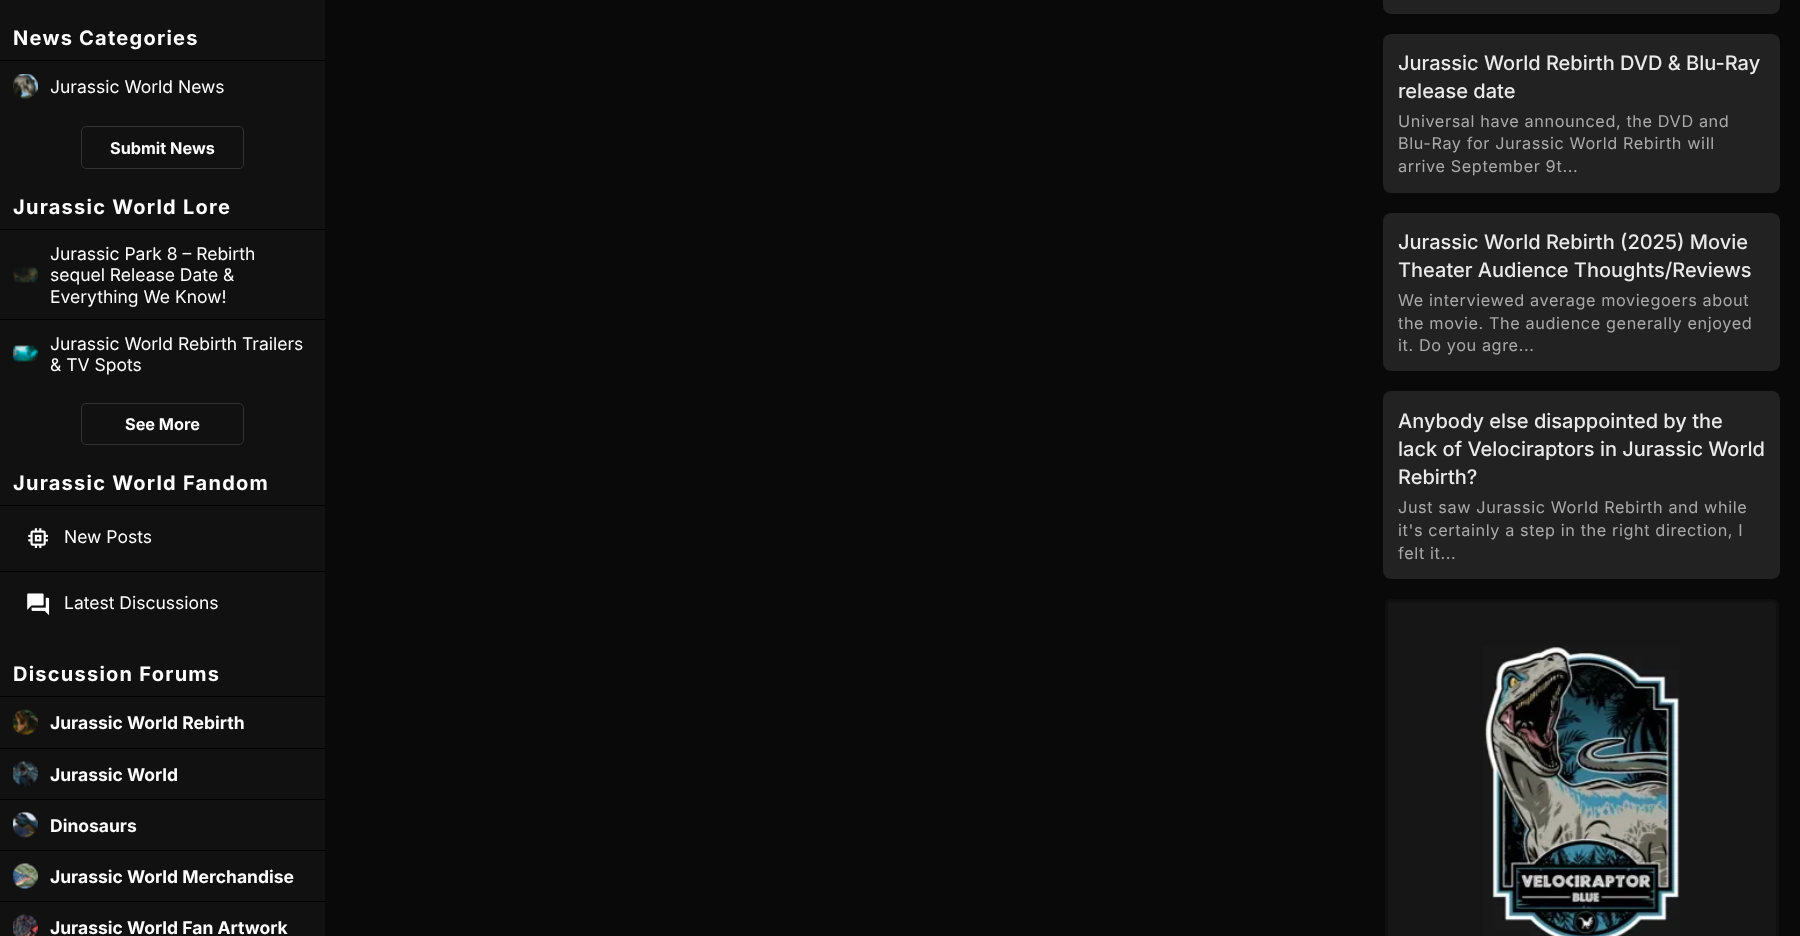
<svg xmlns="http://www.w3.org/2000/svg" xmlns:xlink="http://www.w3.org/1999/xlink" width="1800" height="936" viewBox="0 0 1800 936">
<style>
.cls-1{font:bold 20px Inter;letter-spacing:1.25px;fill:#ffffff}
.cls-2{font:17.5px Inter;fill:#ffffff}
.cls-3{font:bold 16.25px Inter;fill:#ffffff}
.cls-4{font:bold 17.5px Inter;fill:#ffffff}
.cls-5{font:500 20px Inter;fill:#eaeaea}
.cls-6{font:16.25px Inter;letter-spacing:0.6px;fill:#aaaaaa}
</style>
<rect width="100%" height="100%" fill="#090909"/>
<rect fill="#111111" x="0" y="0" width="325" height="936"/>
<rect fill="#010101" x="0" y="60" width="325" height="1"/>
<image xlink:href="image0.png" x="13" y="74" width="25" height="25"/>
<rect fill="none" stroke="#333333" x="81.5" y="126.5" width="162" height="42" rx="4.5"/>
<rect fill="#010101" x="0" y="229" width="325" height="1"/>
<image xlink:href="image1.png" x="13" y="267" width="25" height="16"/>
<rect fill="#010101" x="0" y="319" width="325" height="1"/>
<image xlink:href="image2.png" x="13" y="345" width="25" height="17"/>
<rect fill="none" stroke="#333333" x="81.5" y="403.5" width="162" height="41" rx="4.5"/>
<rect fill="#010101" x="0" y="505" width="325" height="1"/>
<image xlink:href="image3.png" x="28" y="528" width="20" height="20"/>
<rect fill="#010101" x="0" y="571" width="325" height="1"/>
<image xlink:href="image4.png" x="27" y="593" width="23" height="23"/>
<rect fill="#010101" x="0" y="696" width="325" height="1"/>
<image xlink:href="image5.png" x="13" y="709" width="25" height="26"/>
<rect fill="#010101" x="0" y="748" width="325" height="1"/>
<image xlink:href="image6.png" x="13" y="761" width="25" height="26"/>
<rect fill="#010101" x="0" y="799" width="325" height="1"/>
<image xlink:href="image7.png" x="13" y="811" width="25" height="27"/>
<rect fill="#010101" x="0" y="850" width="325" height="1"/>
<image xlink:href="image8.png" x="13" y="863" width="25" height="26"/>
<rect fill="#010101" x="0" y="901" width="325" height="1"/>
<image xlink:href="image9.png" x="13" y="914" width="25" height="22"/>
<rect fill="#222222" x="1383" y="-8" width="397" height="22" rx="8"/>
<rect fill="#222222" x="1383" y="34" width="397" height="159" rx="8"/>
<rect fill="#222222" x="1383" y="213" width="397" height="158" rx="8"/>
<rect fill="#222222" x="1383" y="391" width="397" height="188" rx="8"/>
<rect fill="#161616" stroke="#101010" stroke-width="3" x="1386.5" y="600.5" width="391" height="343" rx="4.5"/>
<image xlink:href="image10.png" x="1483" y="646" width="197" height="290"/>
<text class="cls-1" x="13" y="45">News Categories</text>
<text class="cls-2" x="50" y="93">Jurassic World News</text>
<text class="cls-3" x="110" y="154">Submit News</text>
<text class="cls-1" x="13" y="214">Jurassic World Lore</text>
<text class="cls-2"><tspan x="50" y="260">Jurassic Park 8 – Rebirth</tspan><tspan x="50" y="281">sequel Release Date &amp;</tspan><tspan x="50" y="303">Everything We Know!</tspan></text>
<text class="cls-2"><tspan x="50" y="350">Jurassic World Rebirth Trailers</tspan><tspan x="50" y="371">&amp; TV Spots</tspan></text>
<text class="cls-3" x="125" y="430">See More</text>
<text class="cls-1" x="13" y="490">Jurassic World Fandom</text>
<text class="cls-2" x="64" y="543">New Posts</text>
<text class="cls-2" x="64" y="609">Latest Discussions</text>
<text class="cls-1" x="13" y="681">Discussion Forums</text>
<text class="cls-4" x="50" y="729">Jurassic World Rebirth</text>
<text class="cls-4" x="50" y="781">Jurassic World</text>
<text class="cls-4" x="50" y="832">Dinosaurs</text>
<text class="cls-4" x="50" y="883">Jurassic World Merchandise</text>
<text class="cls-4" x="50" y="934">Jurassic World Fan Artwork</text>
<text class="cls-5"><tspan x="1398" y="70">Jurassic World Rebirth DVD &amp; Blu-Ray</tspan><tspan x="1398" y="98">release date</tspan></text>
<text class="cls-6"><tspan x="1398" y="127">Universal have announced, the DVD and</tspan><tspan x="1398" y="149">Blu-Ray for Jurassic World Rebirth will</tspan><tspan x="1398" y="172">arrive September 9t...</tspan></text>
<text class="cls-5"><tspan x="1398" y="249">Jurassic World Rebirth (2025) Movie</tspan><tspan x="1398" y="277">Theater Audience Thoughts/Reviews</tspan></text>
<text class="cls-6"><tspan x="1398" y="306">We interviewed average moviegoers about</tspan><tspan x="1398" y="329">the movie. The audience generally enjoyed</tspan><tspan x="1398" y="351">it. Do you agre...</tspan></text>
<text class="cls-5"><tspan x="1398" y="428">Anybody else disappointed by the</tspan><tspan x="1398" y="456">lack of Velociraptors in Jurassic World</tspan><tspan x="1398" y="484">Rebirth?</tspan></text>
<text class="cls-6"><tspan x="1398" y="513">Just saw Jurassic World Rebirth and while</tspan><tspan x="1398" y="536">it's certainly a step in the right direction, I</tspan><tspan x="1398" y="559">felt it...</tspan></text>
</svg>
